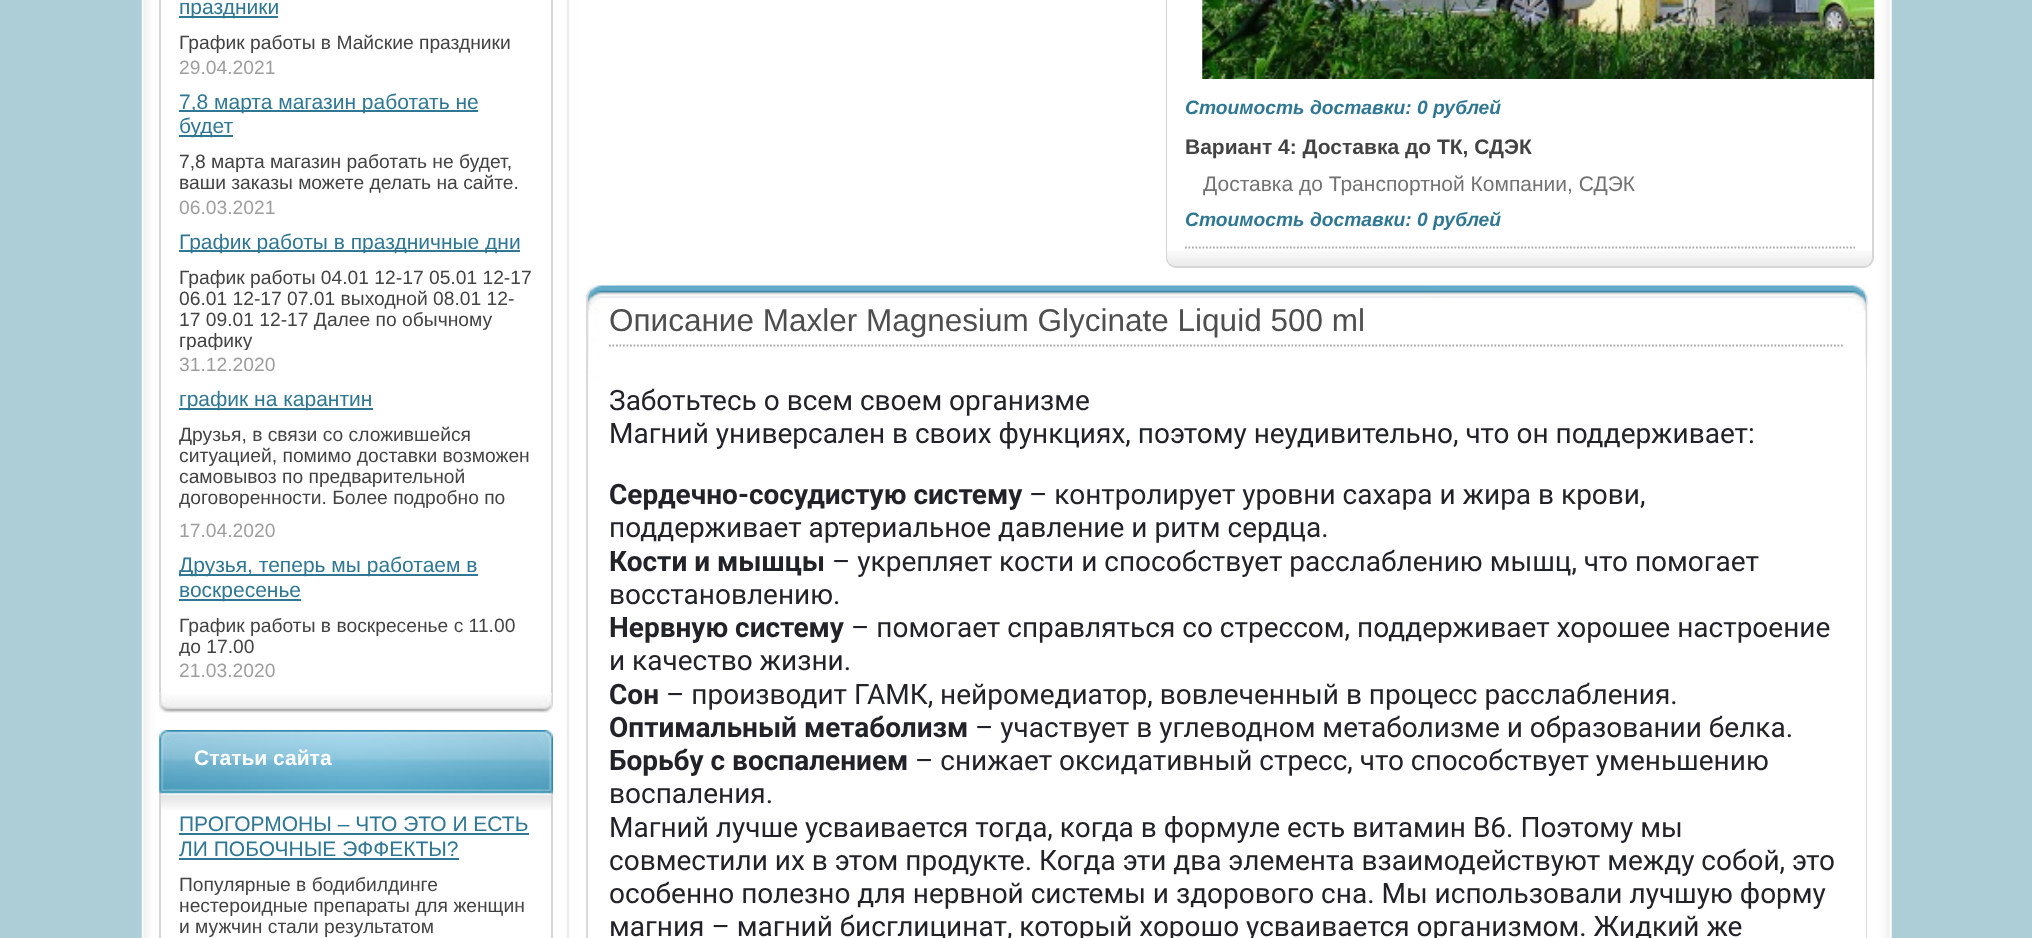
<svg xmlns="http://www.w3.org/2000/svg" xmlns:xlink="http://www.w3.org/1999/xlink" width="2032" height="938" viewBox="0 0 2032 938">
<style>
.cls-1{font:21px Liberation Sans;fill:#2f7793}
.cls-2{font:19.25px Liberation Sans;fill:#434343}
.cls-3{font:19.25px Liberation Sans;fill:#9e9e9e}
.cls-4{font:bold 21px Liberation Sans;fill:#ffffff}
.cls-5{font:italic bold 19.25px Liberation Sans;fill:#2f7793}
.cls-6{font:bold 21px Liberation Sans;fill:#434343}
.cls-7{font:21px Liberation Sans;fill:#727272}
.cls-8{font:31.5px Liberation Sans;fill:#4e4e4e}
.cls-9{font:28px Roboto;fill:#222328}
.cls-10{font:bold 28px Roboto;fill:#222328}
</style>
<defs>
<clipPath id="clip1"><rect x="179" y="266" width="355" height="84"/></clipPath>
<clipPath id="clip2"><rect x="179" y="424" width="355" height="92"/></clipPath>
<clipPath id="clip3"><rect x="179" y="614" width="355" height="42"/></clipPath>
</defs>
<rect width="100%" height="100%" fill="#adcdd7"/>
<image xlink:href="image0.png" x="141" y="0" width="1751" height="938"/>
<rect fill="#d5d5d5" x="551" y="0" width="2" height="693"/>
<rect fill="#d5d5d5" x="159" y="0" width="2" height="693"/>
<rect fill="#2f7793" x="179" y="16" width="99" height="2"/>
<rect fill="#2f7793" x="179" y="110" width="299" height="2"/>
<rect fill="#2f7793" x="179" y="135" width="54" height="2"/>
<rect fill="#2f7793" x="179" y="250" width="341" height="2"/>
<rect fill="#2f7793" x="179" y="408" width="194" height="2"/>
<rect fill="#2f7793" x="179" y="574" width="299" height="2"/>
<rect fill="#2f7793" x="179" y="599" width="122" height="2"/>
<image xlink:href="image1.png" x="159" y="693" width="394" height="20"/>
<image xlink:href="image2.png" x="159" y="730" width="394" height="65"/>
<image xlink:href="image3.png" x="159" y="794" width="394" height="16"/>
<rect fill="#d5d5d5" x="551" y="795" width="2" height="143"/>
<rect fill="#d5d5d5" x="159" y="795" width="2" height="143"/>
<rect fill="#2f7793" x="179" y="833" width="350" height="2"/>
<rect fill="#2f7793" x="179" y="858" width="280" height="2"/>
<image xlink:href="image4.png" x="1166" y="251" width="708" height="16"/>
<path fill="#d5d5d5" d="M1176-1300C1170-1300 1166-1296 1166-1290V257C1166 263 1171 268 1177 268H1863C1869 268 1874 263 1874 257V-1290C1874-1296 1870-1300 1864-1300C1869-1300 1872-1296 1872-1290V257C1872 262 1869 266 1864 266H1176C1171 266 1167 262 1167 257V-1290C1167-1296 1171-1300 1176-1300Z"/>
<path fill="none" stroke="#ababab" stroke-width="1.8" stroke-dasharray="1.75 1.75" d="M1185 247.5H1855"/>
<image xlink:href="image5.png" x="1202" y="0" width="673" height="79"/>
<image xlink:href="image6.png" x="586" y="285" width="1282" height="95"/>
<path fill="#dadada" fill-rule="evenodd" d="M600 285H1853C1861 285 1867 292 1867 299V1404C1867 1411 1861 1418 1853 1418H600C593 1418 586 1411 586 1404V299C586 292 593 285 600 285ZM600 285H1853C1860 285 1866 292 1866 299V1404C1866 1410 1860 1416 1853 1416H600C593 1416 588 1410 588 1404V299C588 292 593 285 600 285Z"/>
<path fill="none" stroke="#ababab" stroke-width="1.8" stroke-dasharray="1.75 1.75" d="M609 345.5H1844.5"/>
<text class="cls-1" x="179" y="14">праздники</text>
<text class="cls-2" x="179" y="49">График работы в Майские праздники</text>
<text class="cls-3" x="179" y="74">29.04.2021</text>
<text class="cls-1"><tspan x="179" y="109">7,8 марта магазин работать не</tspan><tspan x="179" y="133">будет</tspan></text>
<text class="cls-2"><tspan x="179" y="168">7,8 марта магазин работать не будет,</tspan><tspan x="179" y="189">ваши заказы можете делать на сайте.</tspan></text>
<text class="cls-3" x="179" y="214">06.03.2021</text>
<text class="cls-1" x="179" y="249">График работы в праздничные дни</text>
<text class="cls-2"><tspan x="179" y="284">График работы 04.01 12-17 05.01 12-17</tspan><tspan x="179" y="305">06.01 12-17 07.01 выходной 08.01 12-</tspan><tspan x="179" y="326">17 09.01 12-17 Далее по обычному</tspan></text>
<g clip-path="url(#clip1)">
<text class="cls-2" x="179" y="347">графику</text>
</g>
<text class="cls-3" x="179" y="371">31.12.2020</text>
<text class="cls-1" x="179" y="406">график на карантин</text>
<g clip-path="url(#clip2)">
<text class="cls-2" x="179" y="441">Друзья, в связи со сложившейся</text>
</g>
<text class="cls-2"><tspan x="179" y="462">ситуацией, помимо доставки возможен</tspan><tspan x="179" y="483">самовывоз по предварительной</tspan></text>
<g clip-path="url(#clip2)">
<text class="cls-2" x="179" y="504">договоренности. Более подробно по</text>
</g>
<text class="cls-3" x="179" y="537">17.04.2020</text>
<text class="cls-1"><tspan x="179" y="572">Друзья, теперь мы работаем в</tspan><tspan x="179" y="597">воскресенье</tspan></text>
<text class="cls-2" x="179" y="632">График работы в воскресенье с 11.00</text>
<g clip-path="url(#clip3)">
<text class="cls-2" x="179" y="653">до 17.00</text>
</g>
<text class="cls-3" x="179" y="677">21.03.2020</text>
<text class="cls-4" x="194" y="765">Статьи сайта</text>
<text class="cls-1"><tspan x="179" y="831">ПРОГОРМОНЫ – ЧТО ЭТО И ЕСТЬ</tspan><tspan x="179" y="856">ЛИ ПОБОЧНЫЕ ЭФФЕКТЫ?</tspan></text>
<text class="cls-2"><tspan x="179" y="891">Популярные в бодибилдинге</tspan><tspan x="179" y="912">нестероидные препараты для женщин</tspan><tspan x="179" y="933">и мужчин стали результатом</tspan></text>
<text class="cls-5" x="1185" y="114">Стоимость доставки: 0 рублей</text>
<text class="cls-6" x="1185" y="154">Вариант 4: Доставка до ТК, СДЭК</text>
<text class="cls-7" x="1203" y="191">Доставка до Транспортной Компании, СДЭК</text>
<text class="cls-5" x="1185" y="226">Стоимость доставки: 0 рублей</text>
<text class="cls-8" x="609" y="331">Описание Maxler Magnesium Glycinate Liquid 500 ml</text>
<text class="cls-9"><tspan x="609" y="410">Заботьтесь о всем своем организме</tspan><tspan x="609" y="443">Магний универсален в своих функциях, поэтому неудивительно, что он поддерживает:</tspan></text>
<text class="cls-10" x="609" y="504">Сердечно-сосудистую систему</text>
<text class="cls-9" x="1029" y="504">– контролирует уровни сахара и жира в крови,</text>
<text class="cls-9" x="609" y="537">поддерживает артериальное давление и ритм сердца.</text>
<text class="cls-10" x="609" y="571">Кости и мышцы</text>
<text class="cls-9" x="832" y="571">– укрепляет кости и способствует расслаблению мышц, что помогает</text>
<text class="cls-9" x="609" y="604">восстановлению.</text>
<text class="cls-10" x="609" y="637">Нервную систему</text>
<text class="cls-9" x="851" y="637">– помогает справляться со стрессом, поддерживает хорошее настроение</text>
<text class="cls-9" x="609" y="670">и качество жизни.</text>
<text class="cls-10" x="609" y="704">Сон</text>
<text class="cls-9" x="666" y="704">– производит ГАМК, нейромедиатор, вовлеченный в процесс расслабления.</text>
<text class="cls-10" x="609" y="737">Оптимальный метаболизм</text>
<text class="cls-9" x="975" y="737">– участвует в углеводном метаболизме и образовании белка.</text>
<text class="cls-10" x="609" y="770">Борьбу с воспалением</text>
<text class="cls-9" x="915" y="770">– снижает оксидативный стресс, что способствует уменьшению</text>
<text class="cls-9"><tspan x="609" y="803">воспаления.</tspan><tspan x="609" y="837">Магний лучше усваивается тогда, когда в формуле есть витамин В6. Поэтому мы</tspan><tspan x="609" y="870">совместили их в этом продукте. Когда эти два элемента взаимодействуют между собой, это</tspan><tspan x="609" y="903">особенно полезно для нервной системы и здорового сна. Мы использовали лучшую форму</tspan><tspan x="609" y="936">магния – магний бисглицинат, который хорошо усваивается организмом. Жидкий же</tspan></text>
</svg>
